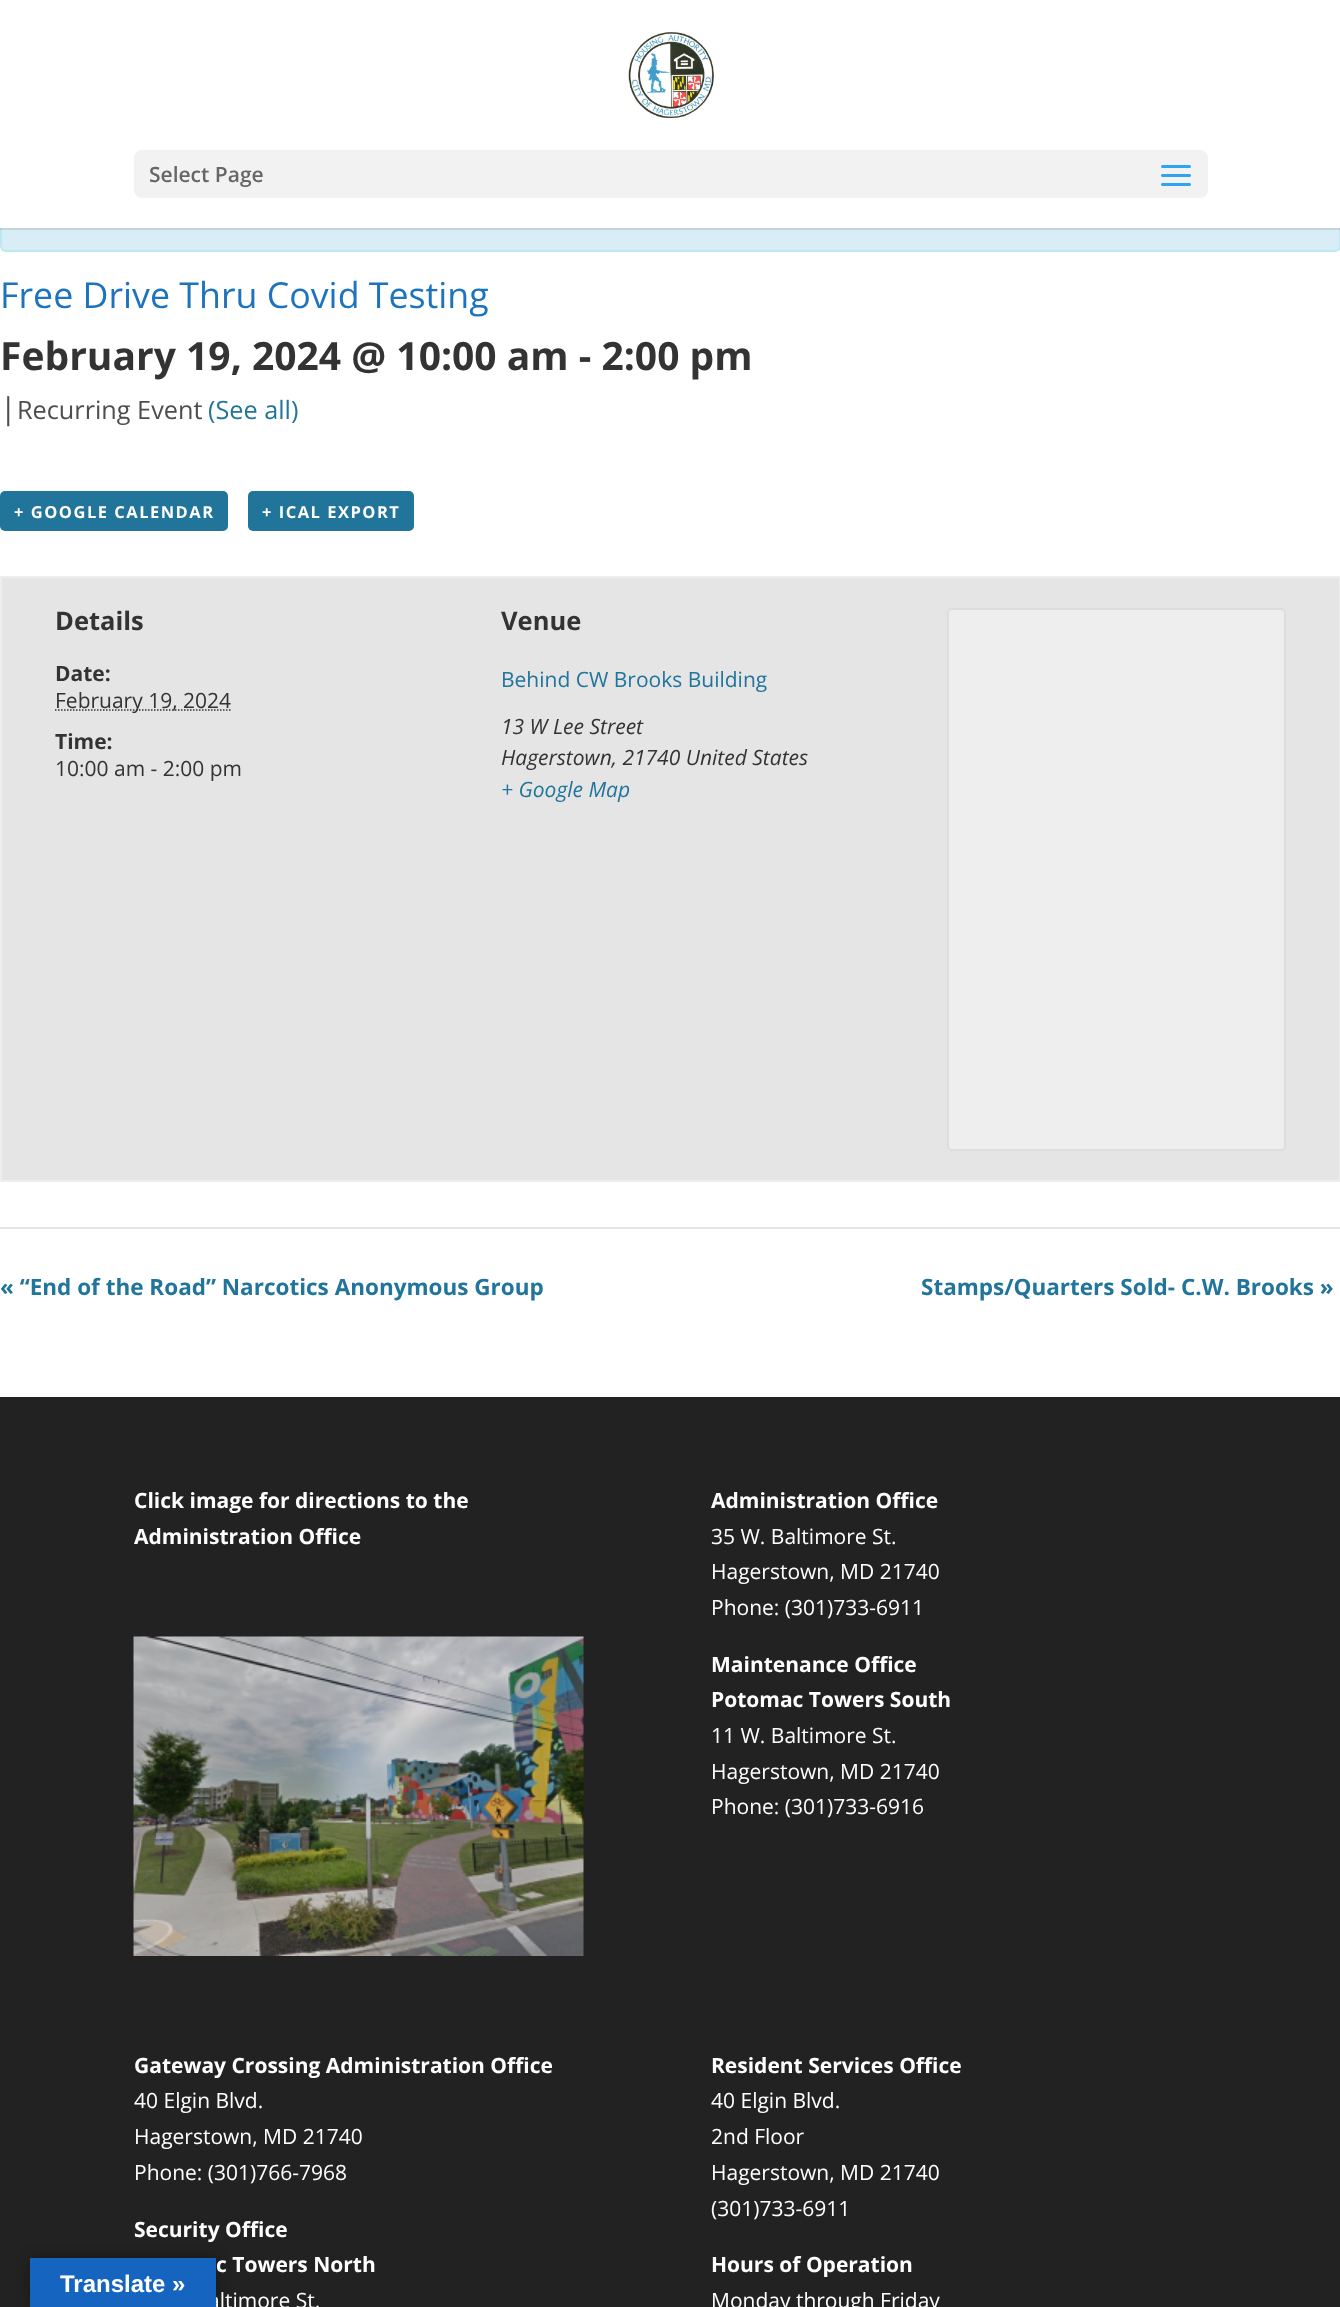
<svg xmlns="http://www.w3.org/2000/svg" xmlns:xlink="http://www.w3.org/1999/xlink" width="1340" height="2307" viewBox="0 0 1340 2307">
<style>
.cls-1{font:600 21px Open Sans;fill:#666666}
.cls-2{font:35.75px Open Sans;fill:#1e73be}
.cls-3{font:bold 39px Open Sans;fill:#333333}
.cls-4{font:30px Open Sans;fill:#4d4d4d}
.cls-5{font:25.25px Open Sans;fill:#4d4d4d}
.cls-6{font:25.25px Open Sans;fill:#21759b}
.cls-7{font:bold 16.5px Open Sans;letter-spacing:1.5px;fill:#ffffff}
.cls-8{font:bold 25.5px Open Sans;fill:#333333}
.cls-9{font:bold 21px Open Sans;fill:#333333}
.cls-10{font:21px Open Sans;fill:#333333}
.cls-11{font:21px Open Sans;fill:#21759b}
.cls-12{font:italic 21px Open Sans;fill:#333333}
.cls-13{font:italic 21px Open Sans;fill:#21759b}
.cls-14{font:bold 22.5px Open Sans;fill:#21759b}
.cls-15{font:bold 21px Open Sans;fill:#ffffff}
.cls-16{font:21px Open Sans;fill:#ffffff}
.cls-17{font:bold 24px Liberation Sans;fill:#ffffff}
</style>
<rect width="100%" height="100%" fill="#ffffff"/>
<rect fill="#d9edf7" stroke="#bce8f1" stroke-width="2" x="1" y="190" width="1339" height="61" rx="5"/>
<rect fill="#000000" fill-opacity="0.1" x="0" y="228" width="1340" height="2"/>
<rect fill="#ffffff" x="0" y="189" width="1340" height="39"/>
<image xlink:href="image0.png" x="628" y="31" width="86" height="88"/>
<rect fill="#f2f2f2" x="134" y="150" width="1074" height="48" rx="8"/>
<image xlink:href="image1.png" x="1161" y="165" width="30" height="21"/>
<rect fill="#21759b" x="0" y="491" width="228" height="40" rx="5"/>
<rect fill="#21759b" x="248" y="491" width="166" height="40" rx="5"/>
<rect fill="#e5e5e5" stroke="#eeeeee" stroke-width="2" x="1" y="577" width="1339" height="604"/>
<path fill="none" stroke="#333333" stroke-width="1.5" stroke-dasharray="1.5 1.5" d="M55 710H231"/>
<rect fill="#eeeeee" stroke="#dddddd" stroke-width="2" x="948" y="609" width="337" height="541" rx="4"/>
<rect fill="#e5e5e5" x="0" y="1227" width="1340" height="2"/>
<rect fill="#222222" x="0" y="1397" width="1340" height="910"/>
<image xlink:href="image2.png" x="133" y="1636" width="451" height="320"/>
<rect fill="#000000" fill-opacity="0.3" filter="blur(7px)" x="30" y="2258" width="186" height="49"/>
<text class="cls-1" x="149" y="182">Select Page</text>
<text class="cls-2" x="0" y="308">Free Drive Thru Covid Testing</text>
<text class="cls-3" x="0" y="370">February 19, 2024 @ 10:00 am - 2:00 pm</text>
<text class="cls-4" x="0" y="419">|</text>
<text class="cls-5" x="17" y="419">Recurring Event</text>
<text class="cls-6" x="208" y="419">(See all)</text>
<text class="cls-7" x="14" y="518">+ GOOGLE CALENDAR</text>
<text class="cls-7" x="262" y="518">+ ICAL EXPORT</text>
<text class="cls-8" x="55" y="630">Details</text>
<text class="cls-9" x="55" y="681">Date:</text>
<text class="cls-10" x="55" y="708">February 19, 2024</text>
<text class="cls-9" x="55" y="749">Time:</text>
<text class="cls-10" x="55" y="776">10:00 am - 2:00 pm</text>
<text class="cls-8" x="501" y="630">Venue</text>
<text class="cls-11" x="501" y="687">Behind CW Brooks Building</text>
<text class="cls-12"><tspan x="501" y="734">13 W Lee Street</tspan><tspan x="501" y="765">Hagerstown, 21740 United States</tspan></text>
<text class="cls-13" x="501" y="797">+ Google Map</text>
<text class="cls-14" x="0" y="1295">« “End of the Road” Narcotics Anonymous Group</text>
<text class="cls-14" x="921" y="1295">Stamps/Quarters Sold- C.W. Brooks »</text>
<text class="cls-15"><tspan x="134" y="1508">Click image for directions to the</tspan><tspan x="134" y="1544">Administration Office</tspan></text>
<text class="cls-15" x="711" y="1508">Administration Office</text>
<text class="cls-16"><tspan x="711" y="1544">35 W. Baltimore St.</tspan><tspan x="711" y="1579">Hagerstown, MD 21740</tspan><tspan x="711" y="1615">Phone: (301)733-6911</tspan></text>
<text class="cls-15"><tspan x="711" y="1672">Maintenance Office</tspan><tspan x="711" y="1707">Potomac Towers South</tspan></text>
<text class="cls-16"><tspan x="711" y="1743">11 W. Baltimore St.</tspan><tspan x="711" y="1779">Hagerstown, MD 21740</tspan><tspan x="711" y="1814">Phone: (301)733-6916</tspan></text>
<text class="cls-15" x="134" y="2073">Gateway Crossing Administration Office</text>
<text class="cls-16"><tspan x="134" y="2108">40 Elgin Blvd.</tspan><tspan x="134" y="2144">Hagerstown, MD 21740</tspan><tspan x="134" y="2180">Phone: (301)766-7968</tspan></text>
<text class="cls-15" x="134" y="2237">Security Office</text>
<text class="cls-15" x="216" y="2272">c Towers North</text>
<text class="cls-16" x="208" y="2308">altimore St.</text>
<text class="cls-15" x="711" y="2073">Resident Services Office</text>
<text class="cls-16"><tspan x="711" y="2108">40 Elgin Blvd.</tspan><tspan x="711" y="2144">2nd Floor</tspan><tspan x="711" y="2180">Hagerstown, MD 21740</tspan><tspan x="711" y="2216">(301)733-6911</tspan></text>
<text class="cls-15" x="711" y="2272">Hours of Operation</text>
<text class="cls-16" x="711" y="2308">Monday through Friday</text>
<rect fill="#1565c0" x="30" y="2258" width="186" height="49"/>
<text class="cls-17" x="60" y="2292">Translate »</text>
</svg>
